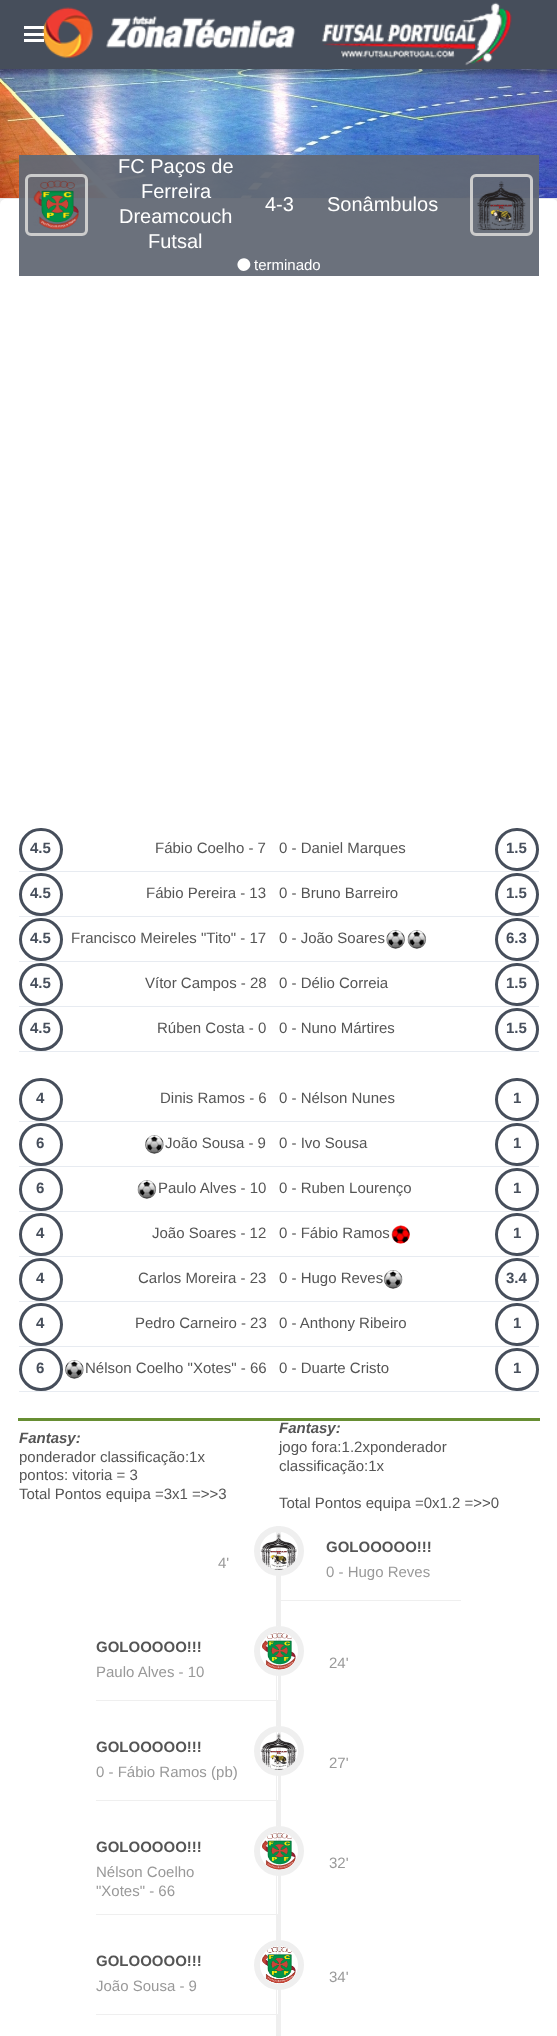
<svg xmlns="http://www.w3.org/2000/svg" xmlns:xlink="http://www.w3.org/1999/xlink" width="557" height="2036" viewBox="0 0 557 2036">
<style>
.cls-1{font:20px Liberation Sans;fill:#ffffff}
.cls-2{font:15px Liberation Sans;fill:#ffffff}
.cls-3{font:bold 15px Liberation Sans;fill:#464e5b}
.cls-4{font:15px Liberation Sans;fill:#555555}
.cls-5{font:italic bold 15px Liberation Sans;fill:#555555}
.cls-6{font:15px Liberation Sans;fill:#999999}
.cls-7{font:bold 15px Liberation Sans;fill:#555555}
</style>
<rect width="100%" height="100%" fill="#efefef"/>
<image xlink:href="image1.png" x="0" y="69" width="557" height="130"/>
<rect fill="#000000" fill-opacity="0.2" filter="blur(1px)" x="0" y="5" width="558" height="69"/>
<rect fill="#464e5b" x="0" y="0" width="557" height="69"/>
<image xlink:href="image0.png" x="42" y="2" width="470" height="64"/>
<rect fill="#ffffff" x="24" y="26" width="20" height="3"/>
<rect fill="#ffffff" x="24" y="33" width="20" height="3"/>
<rect fill="#ffffff" x="24" y="39" width="20" height="3"/>
<path fill="#ffffff" d="M6 199H552C555.5 199 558 201.5 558 205V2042H0V205C0 201.5 2.5 199 6 199Z"/>
<rect fill="#ffffff" fill-opacity="0.7" x="19" y="155" width="520" height="44"/>
<rect fill="#464e5b" fill-opacity="0.8" x="19" y="155" width="520" height="121"/>
<rect fill="none" stroke="#cccccc" stroke-width="3" x="26.5" y="175.5" width="60" height="59" rx="4.5"/>
<image xlink:href="image2.png" x="33" y="180" width="46" height="50"/>
<rect fill="none" stroke="#cccccc" stroke-width="3" x="471.5" y="175.5" width="60" height="59" rx="4.5"/>
<image xlink:href="image3.png" x="477" y="181" width="49" height="49"/>
<path fill="#ffffff" d="M249.5 261.5C253.5 268.5 242.5 275 238.5 268C234 260.5 245 254 249.5 261.5Z"/>
<rect fill="#e7ebf1" x="19" y="871" width="520" height="1"/>
<rect fill="none" stroke="#464e5b" stroke-width="3" x="20.5" y="829.5" width="41" height="40" rx="20"/>
<rect fill="#e7ebf1" x="19" y="916" width="520" height="1"/>
<rect fill="none" stroke="#464e5b" stroke-width="3" x="20.5" y="874.5" width="41" height="40" rx="20"/>
<rect fill="#e7ebf1" x="19" y="961" width="520" height="1"/>
<rect fill="none" stroke="#464e5b" stroke-width="3" x="20.5" y="919.5" width="41" height="40" rx="20"/>
<rect fill="#e7ebf1" x="19" y="1006" width="520" height="1"/>
<rect fill="none" stroke="#464e5b" stroke-width="3" x="20.5" y="964.5" width="41" height="40" rx="20"/>
<rect fill="#e7ebf1" x="19" y="1051" width="520" height="1"/>
<rect fill="none" stroke="#464e5b" stroke-width="3" x="20.5" y="1009.5" width="41" height="40" rx="20"/>
<rect fill="none" stroke="#464e5b" stroke-width="3" x="496.5" y="829.5" width="41" height="40" rx="20"/>
<rect fill="none" stroke="#464e5b" stroke-width="3" x="496.5" y="874.5" width="41" height="40" rx="20"/>
<image xlink:href="image4.png" x="386" y="930" width="19" height="19"/>
<image xlink:href="image5.png" x="407" y="930" width="20" height="19"/>
<rect fill="none" stroke="#464e5b" stroke-width="3" x="496.5" y="919.5" width="41" height="40" rx="20"/>
<rect fill="none" stroke="#464e5b" stroke-width="3" x="496.5" y="964.5" width="41" height="40" rx="20"/>
<rect fill="none" stroke="#464e5b" stroke-width="3" x="496.5" y="1009.5" width="41" height="40" rx="20"/>
<rect fill="#678e33" x="18" y="1418" width="522" height="3"/>
<rect fill="#e7ebf1" x="19" y="1121" width="520" height="1"/>
<rect fill="none" stroke="#464e5b" stroke-width="3" x="20.5" y="1079.5" width="41" height="40" rx="20"/>
<rect fill="#e7ebf1" x="19" y="1166" width="520" height="1"/>
<rect fill="none" stroke="#464e5b" stroke-width="3" x="20.5" y="1124.5" width="41" height="40" rx="20"/>
<image xlink:href="image6.png" x="145" y="1135" width="19" height="19"/>
<rect fill="#e7ebf1" x="19" y="1211" width="520" height="1"/>
<rect fill="none" stroke="#464e5b" stroke-width="3" x="20.5" y="1169.5" width="41" height="40" rx="20"/>
<image xlink:href="image7.png" x="137" y="1180" width="20" height="19"/>
<rect fill="#e7ebf1" x="19" y="1256" width="520" height="1"/>
<rect fill="none" stroke="#464e5b" stroke-width="3" x="20.5" y="1214.5" width="41" height="40" rx="20"/>
<rect fill="#e7ebf1" x="19" y="1301" width="520" height="1"/>
<rect fill="none" stroke="#464e5b" stroke-width="3" x="20.5" y="1259.5" width="41" height="40" rx="20"/>
<rect fill="#e7ebf1" x="19" y="1346" width="520" height="1"/>
<rect fill="none" stroke="#464e5b" stroke-width="3" x="20.5" y="1304.5" width="41" height="40" rx="20"/>
<rect fill="#e7ebf1" x="19" y="1391" width="520" height="1"/>
<rect fill="none" stroke="#464e5b" stroke-width="3" x="20.5" y="1349.5" width="41" height="40" rx="20"/>
<image xlink:href="image8.png" x="65" y="1360" width="19" height="19"/>
<rect fill="none" stroke="#464e5b" stroke-width="3" x="496.5" y="1079.5" width="41" height="40" rx="20"/>
<rect fill="none" stroke="#464e5b" stroke-width="3" x="496.5" y="1124.5" width="41" height="40" rx="20"/>
<rect fill="none" stroke="#464e5b" stroke-width="3" x="496.5" y="1169.5" width="41" height="40" rx="20"/>
<image xlink:href="image9.png" x="391" y="1225" width="19" height="19"/>
<rect fill="none" stroke="#464e5b" stroke-width="3" x="496.5" y="1214.5" width="41" height="40" rx="20"/>
<image xlink:href="image10.png" x="383" y="1270" width="20" height="19"/>
<rect fill="none" stroke="#464e5b" stroke-width="3" x="496.5" y="1259.5" width="41" height="40" rx="20"/>
<rect fill="none" stroke="#464e5b" stroke-width="3" x="496.5" y="1304.5" width="41" height="40" rx="20"/>
<rect fill="none" stroke="#464e5b" stroke-width="3" x="496.5" y="1349.5" width="41" height="40" rx="20"/>
<rect fill="#efefef" x="276" y="1526" width="5" height="510"/>
<circle fill="none" stroke="#efefef" stroke-width="6" cx="279" cy="1551" r="22"/>
<image xlink:href="image11.png" x="260" y="1533" width="37" height="37"/>
<rect fill="#efefef" x="280" y="1600" width="181" height="1"/>
<rect fill="#ffffff" x="276" y="1626" width="2" height="74"/>
<rect fill="#efefef" x="276" y="1626" width="1" height="75"/>
<rect fill="#efefef" x="96" y="1700" width="182" height="1"/>
<circle fill="none" stroke="#efefef" stroke-width="6" cx="279" cy="1651" r="22"/>
<image xlink:href="image12.png" x="262" y="1633" width="34" height="37"/>
<rect fill="#ffffff" x="276" y="1726" width="2" height="74"/>
<rect fill="#efefef" x="276" y="1726" width="1" height="75"/>
<rect fill="#efefef" x="96" y="1800" width="182" height="1"/>
<circle fill="none" stroke="#efefef" stroke-width="6" cx="279" cy="1751" r="22"/>
<image xlink:href="image13.png" x="260" y="1733" width="37" height="37"/>
<rect fill="#ffffff" x="276" y="1826" width="2" height="88"/>
<rect fill="#efefef" x="276" y="1826" width="1" height="89"/>
<rect fill="#efefef" x="96" y="1914" width="182" height="1"/>
<circle fill="none" stroke="#efefef" stroke-width="6" cx="279" cy="1851" r="22"/>
<image xlink:href="image12.png" x="262" y="1833" width="34" height="37"/>
<rect fill="#ffffff" x="276" y="1940" width="2" height="74"/>
<rect fill="#efefef" x="276" y="1940" width="1" height="75"/>
<rect fill="#efefef" x="96" y="2014" width="182" height="1"/>
<circle fill="none" stroke="#efefef" stroke-width="6" cx="279" cy="1965" r="22"/>
<image xlink:href="image14.png" x="262" y="1946" width="34" height="37"/>
<text class="cls-1" x="118" y="173">FC Paços de</text>
<text class="cls-1" x="141" y="198">Ferreira</text>
<text class="cls-1" x="119" y="223">Dreamcouch</text>
<text class="cls-1" x="148" y="248">Futsal</text>
<text class="cls-1" x="265" y="211">4-3</text>
<text class="cls-1" x="327" y="211">Sonâmbulos</text>
<text class="cls-2" x="254" y="270">terminado</text>
<text class="cls-3" x="30" y="853">4.5</text>
<text class="cls-4" x="155" y="853">Fábio Coelho - 7</text>
<text class="cls-3" x="30" y="898">4.5</text>
<text class="cls-4" x="146" y="898">Fábio Pereira - 13</text>
<text class="cls-3" x="30" y="943">4.5</text>
<text class="cls-4" x="71" y="943">Francisco Meireles "Tito" - 17</text>
<text class="cls-3" x="30" y="988">4.5</text>
<text class="cls-4" x="145" y="988">Vítor Campos - 28</text>
<text class="cls-3" x="30" y="1033">4.5</text>
<text class="cls-4" x="157" y="1033">Rúben Costa - 0</text>
<text class="cls-4" x="279" y="853">0 - Daniel Marques</text>
<text class="cls-3" x="506" y="853">1.5</text>
<text class="cls-4" x="279" y="898">0 - Bruno Barreiro</text>
<text class="cls-3" x="506" y="898">1.5</text>
<text class="cls-4" x="279" y="943">0 - João Soares</text>
<text class="cls-3" x="506" y="943">6.3</text>
<text class="cls-4" x="279" y="988">0 - Délio Correia</text>
<text class="cls-3" x="506" y="988">1.5</text>
<text class="cls-4" x="279" y="1033">0 - Nuno Mártires</text>
<text class="cls-3" x="506" y="1033">1.5</text>
<text class="cls-3" x="36" y="1103">4</text>
<text class="cls-4" x="160" y="1103">Dinis Ramos - 6</text>
<text class="cls-3" x="36" y="1148">6</text>
<text class="cls-4" x="165" y="1148">João Sousa - 9</text>
<text class="cls-3" x="36" y="1193">6</text>
<text class="cls-4" x="158" y="1193">Paulo Alves - 10</text>
<text class="cls-3" x="36" y="1238">4</text>
<text class="cls-4" x="152" y="1238">João Soares - 12</text>
<text class="cls-3" x="36" y="1283">4</text>
<text class="cls-4" x="138" y="1283">Carlos Moreira - 23</text>
<text class="cls-3" x="36" y="1328">4</text>
<text class="cls-4" x="135" y="1328">Pedro Carneiro - 23</text>
<text class="cls-3" x="36" y="1373">6</text>
<text class="cls-4" x="85" y="1373">Nélson Coelho "Xotes" - 66</text>
<text class="cls-4" x="279" y="1103">0 - Nélson Nunes</text>
<text class="cls-3" x="513" y="1103">1</text>
<text class="cls-4" x="279" y="1148">0 - Ivo Sousa</text>
<text class="cls-3" x="513" y="1148">1</text>
<text class="cls-4" x="279" y="1193">0 - Ruben Lourenço</text>
<text class="cls-3" x="513" y="1193">1</text>
<text class="cls-4" x="279" y="1238">0 - Fábio Ramos</text>
<text class="cls-3" x="513" y="1238">1</text>
<text class="cls-4" x="279" y="1283">0 - Hugo Reves</text>
<text class="cls-3" x="506" y="1283">3.4</text>
<text class="cls-4" x="279" y="1328">0 - Anthony Ribeiro</text>
<text class="cls-3" x="513" y="1328">1</text>
<text class="cls-4" x="279" y="1373">0 - Duarte Cristo</text>
<text class="cls-3" x="513" y="1373">1</text>
<text class="cls-5" x="19" y="1443">Fantasy:</text>
<text class="cls-4"><tspan x="19" y="1462">ponderador classificação:1x</tspan><tspan x="19" y="1480">pontos: vitoria = 3</tspan><tspan x="19" y="1499">Total Pontos equipa =3x1 =&gt;&gt;3</tspan></text>
<text class="cls-5" x="279" y="1433">Fantasy:</text>
<text class="cls-4"><tspan x="279" y="1452">jogo fora:1.2xponderador</tspan><tspan x="279" y="1471">classificação:1x</tspan></text>
<text class="cls-4" x="279" y="1508">Total Pontos equipa =0x1.2 =&gt;&gt;0</text>
<text class="cls-6" x="218" y="1568">4'</text>
<text class="cls-7" x="326" y="1552">GOLOOOOO!!!</text>
<text class="cls-6" x="326" y="1577">0 - Hugo Reves</text>
<text class="cls-7" x="96" y="1652">GOLOOOOO!!!</text>
<text class="cls-6" x="96" y="1677">Paulo Alves - 10</text>
<text class="cls-6" x="329" y="1668">24'</text>
<text class="cls-7" x="96" y="1752">GOLOOOOO!!!</text>
<text class="cls-6" x="96" y="1777">0 - Fábio Ramos (pb)</text>
<text class="cls-6" x="329" y="1768">27'</text>
<text class="cls-7" x="96" y="1852">GOLOOOOO!!!</text>
<text class="cls-6"><tspan x="96" y="1877">Nélson Coelho</tspan><tspan x="96" y="1896">"Xotes" - 66</tspan></text>
<text class="cls-6" x="329" y="1868">32'</text>
<text class="cls-7" x="96" y="1966">GOLOOOOO!!!</text>
<text class="cls-6" x="96" y="1991">João Sousa - 9</text>
<text class="cls-6" x="329" y="1982">34'</text>
</svg>
